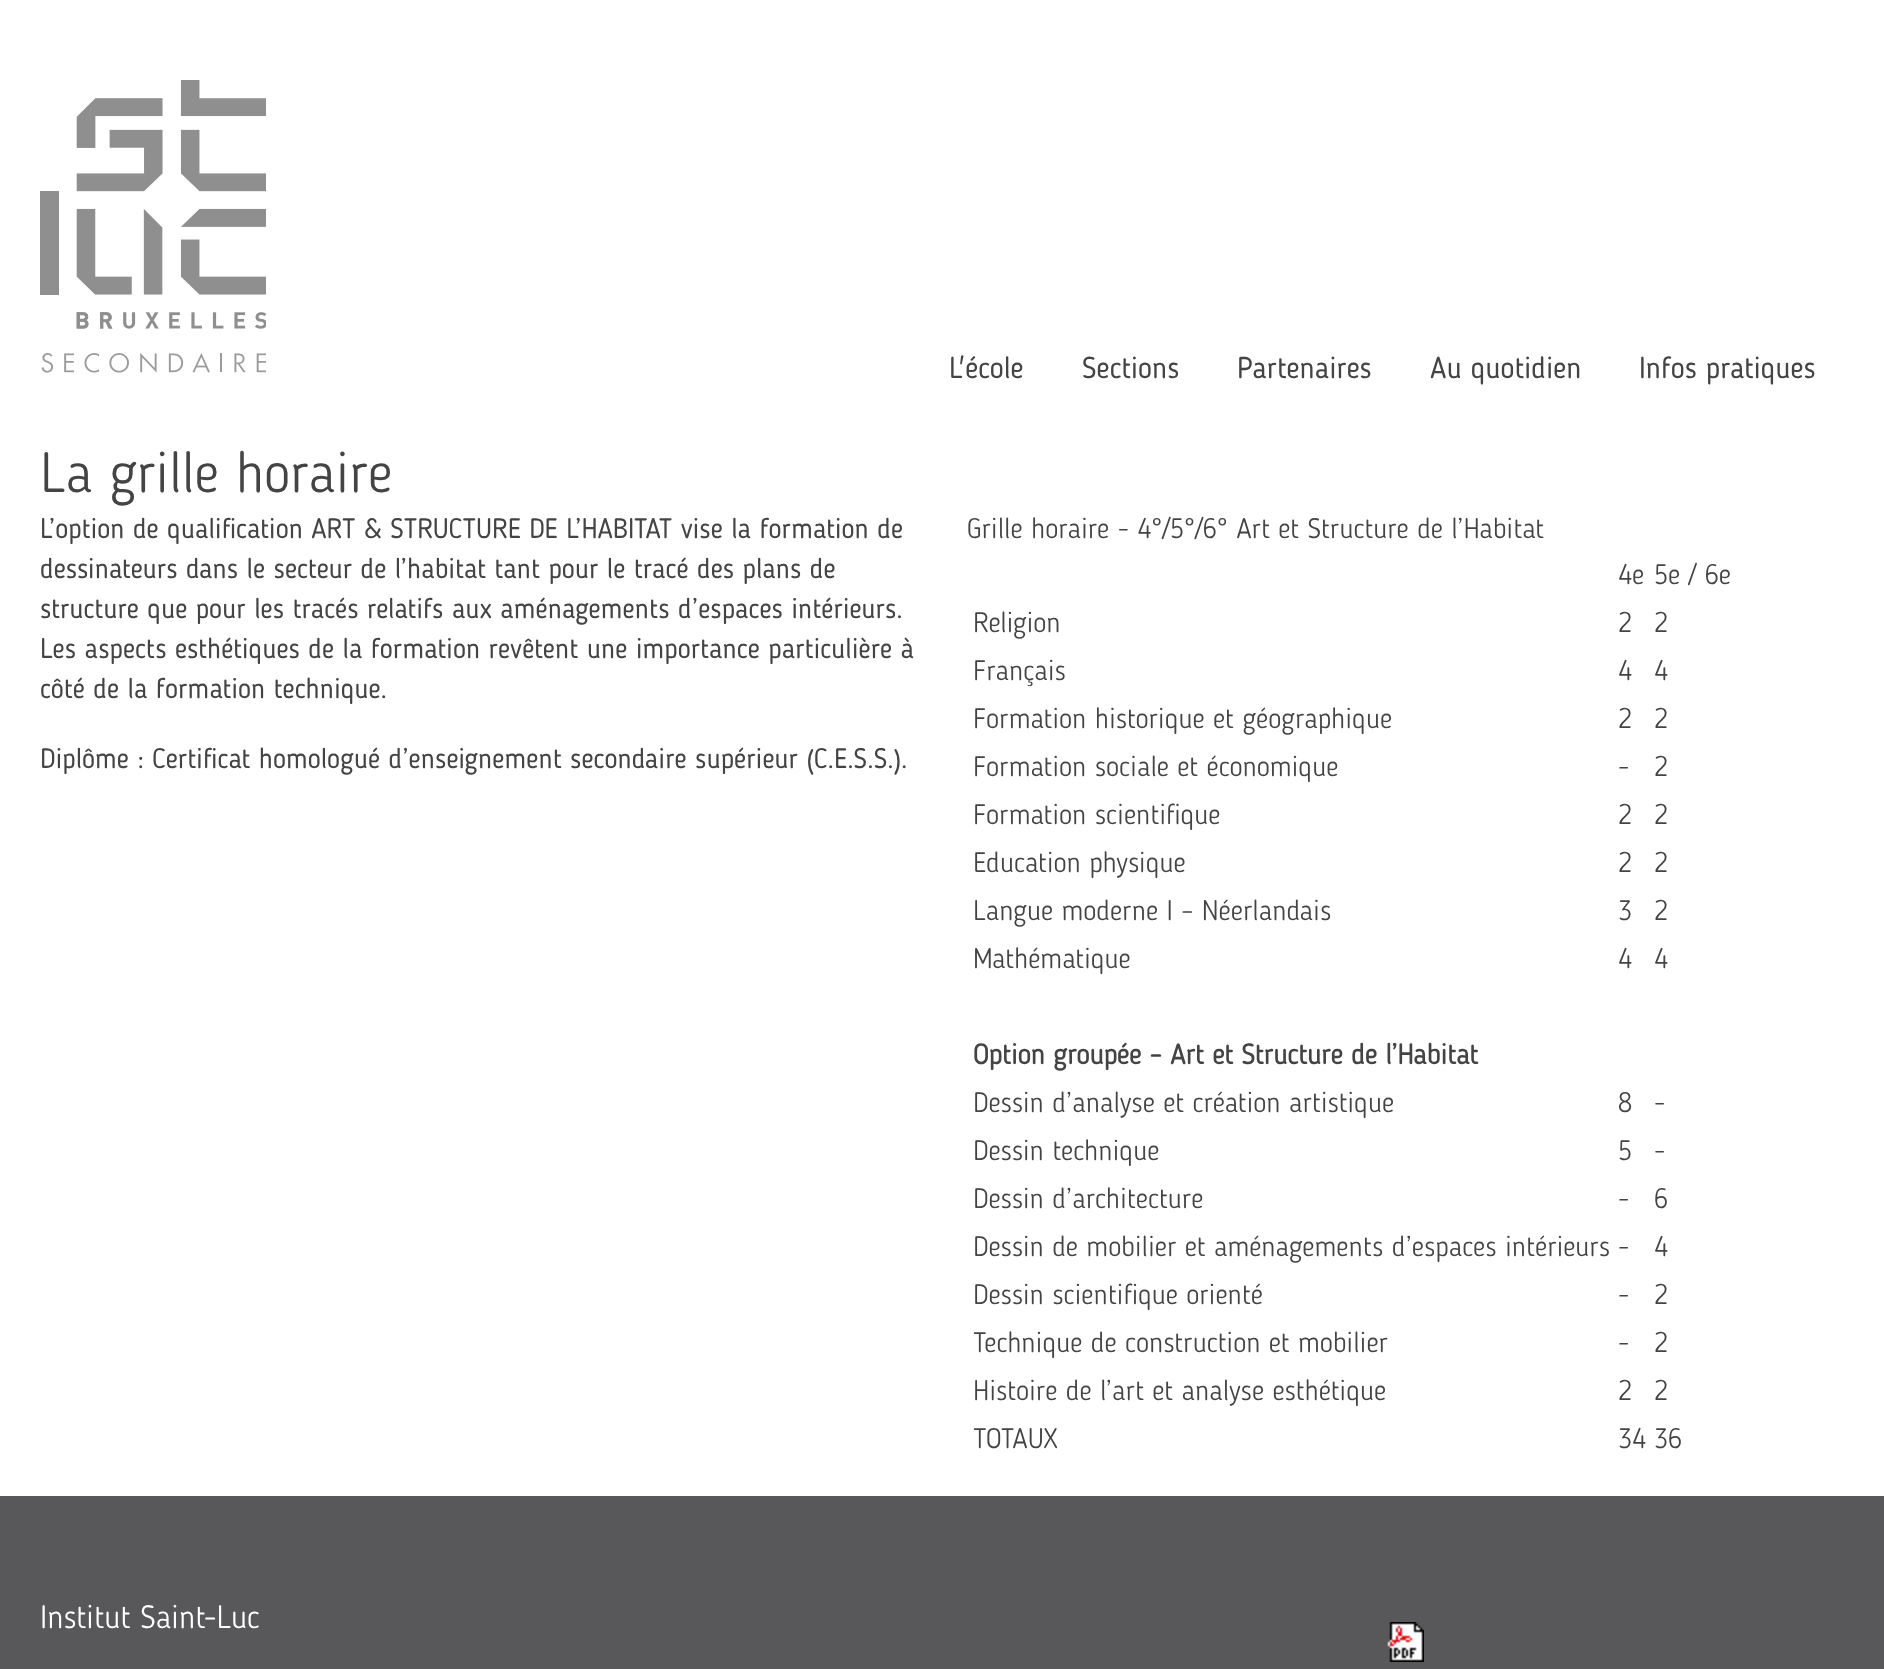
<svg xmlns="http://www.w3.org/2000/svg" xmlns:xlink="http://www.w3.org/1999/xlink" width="1884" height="1669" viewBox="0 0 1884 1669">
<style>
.cls-1{font:30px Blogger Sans;fill:#444444}
.cls-2{font:300 56px Blogger Sans;fill:#444444}
.cls-3{font:28px Blogger Sans;fill:#444444}
.cls-4{font:300 28px Blogger Sans;fill:#444444}
.cls-5{font:bold 28px Blogger Sans;fill:#444444}
.cls-6{font:300 32px Blogger Sans;fill:#ffffff}
</style>
<rect width="100%" height="100%" fill="#ffffff"/>
<image xlink:href="image0.png" x="40" y="80" width="226" height="293"/>
<rect fill="#58585a" x="0" y="1496" width="1884" height="173"/>
<image xlink:href="image1.png" x="1387" y="1622" width="37" height="40"/>
<text class="cls-1" x="949" y="378">L'école</text>
<text class="cls-1" x="1082" y="378">Sections</text>
<text class="cls-1" x="1237" y="378">Partenaires</text>
<text class="cls-1" x="1430" y="378">Au quotidien</text>
<text class="cls-1" x="1639" y="378">Infos pratiques</text>
<text class="cls-2" x="40" y="492">La grille horaire</text>
<text class="cls-3"><tspan x="40" y="538">L’option de qualification ART &amp; STRUCTURE DE L’HABITAT vise la formation de</tspan><tspan x="40" y="578">dessinateurs dans le secteur de l’habitat tant pour le tracé des plans de</tspan><tspan x="40" y="618">structure que pour les tracés relatifs aux aménagements d’espaces intérieurs.</tspan><tspan x="40" y="658">Les aspects esthétiques de la formation revêtent une importance particulière à</tspan><tspan x="40" y="698">côté de la formation technique.</tspan></text>
<text class="cls-3" x="40" y="768">Diplôme : Certificat homologué d’enseignement secondaire supérieur (C.E.S.S.).</text>
<text class="cls-4" x="967" y="538">Grille horaire - 4°/5°/6° Art et Structure de l’Habitat</text>
<text class="cls-4" x="1618" y="584">4e</text>
<text class="cls-4" x="1654" y="584">5e / 6e</text>
<text class="cls-4" x="973" y="632">Religion</text>
<text class="cls-4" x="1618" y="632">2</text>
<text class="cls-4" x="1654" y="632">2</text>
<text class="cls-4" x="973" y="680">Français</text>
<text class="cls-4" x="1618" y="680">4</text>
<text class="cls-4" x="1654" y="680">4</text>
<text class="cls-4" x="973" y="728">Formation historique et géographique</text>
<text class="cls-4" x="1618" y="728">2</text>
<text class="cls-4" x="1654" y="728">2</text>
<text class="cls-4" x="973" y="776">Formation sociale et économique</text>
<text class="cls-4" x="1618" y="776">-</text>
<text class="cls-4" x="1654" y="776">2</text>
<text class="cls-4" x="973" y="824">Formation scientifique</text>
<text class="cls-4" x="1618" y="824">2</text>
<text class="cls-4" x="1654" y="824">2</text>
<text class="cls-4" x="973" y="872">Education physique</text>
<text class="cls-4" x="1618" y="872">2</text>
<text class="cls-4" x="1654" y="872">2</text>
<text class="cls-4" x="973" y="920">Langue moderne I – Néerlandais</text>
<text class="cls-4" x="1618" y="920">3</text>
<text class="cls-4" x="1654" y="920">2</text>
<text class="cls-4" x="973" y="968">Mathématique</text>
<text class="cls-4" x="1618" y="968">4</text>
<text class="cls-4" x="1654" y="968">4</text>
<text class="cls-5" x="973" y="1064">Option groupée – Art et Structure de l’Habitat</text>
<text class="cls-4" x="973" y="1112">Dessin d’analyse et création artistique</text>
<text class="cls-4" x="1618" y="1112">8</text>
<text class="cls-4" x="1654" y="1112">-</text>
<text class="cls-4" x="973" y="1160">Dessin technique</text>
<text class="cls-4" x="1618" y="1160">5</text>
<text class="cls-4" x="1654" y="1160">-</text>
<text class="cls-4" x="973" y="1208">Dessin d’architecture</text>
<text class="cls-4" x="1618" y="1208">-</text>
<text class="cls-4" x="1654" y="1208">6</text>
<text class="cls-4" x="973" y="1256">Dessin de mobilier et aménagements d’espaces intérieurs</text>
<text class="cls-4" x="1618" y="1256">-</text>
<text class="cls-4" x="1654" y="1256">4</text>
<text class="cls-4" x="973" y="1304">Dessin scientifique orienté</text>
<text class="cls-4" x="1618" y="1304">-</text>
<text class="cls-4" x="1654" y="1304">2</text>
<text class="cls-4" x="973" y="1352">Technique de construction et mobilier</text>
<text class="cls-4" x="1618" y="1352">-</text>
<text class="cls-4" x="1654" y="1352">2</text>
<text class="cls-4" x="973" y="1400">Histoire de l’art et analyse esthétique</text>
<text class="cls-4" x="1618" y="1400">2</text>
<text class="cls-4" x="1654" y="1400">2</text>
<text class="cls-4" x="973" y="1448">TOTAUX</text>
<text class="cls-4" x="1618" y="1448">34</text>
<text class="cls-4" x="1654" y="1448">36</text>
<text class="cls-6" x="40" y="1628">Institut Saint-Luc</text>
</svg>
